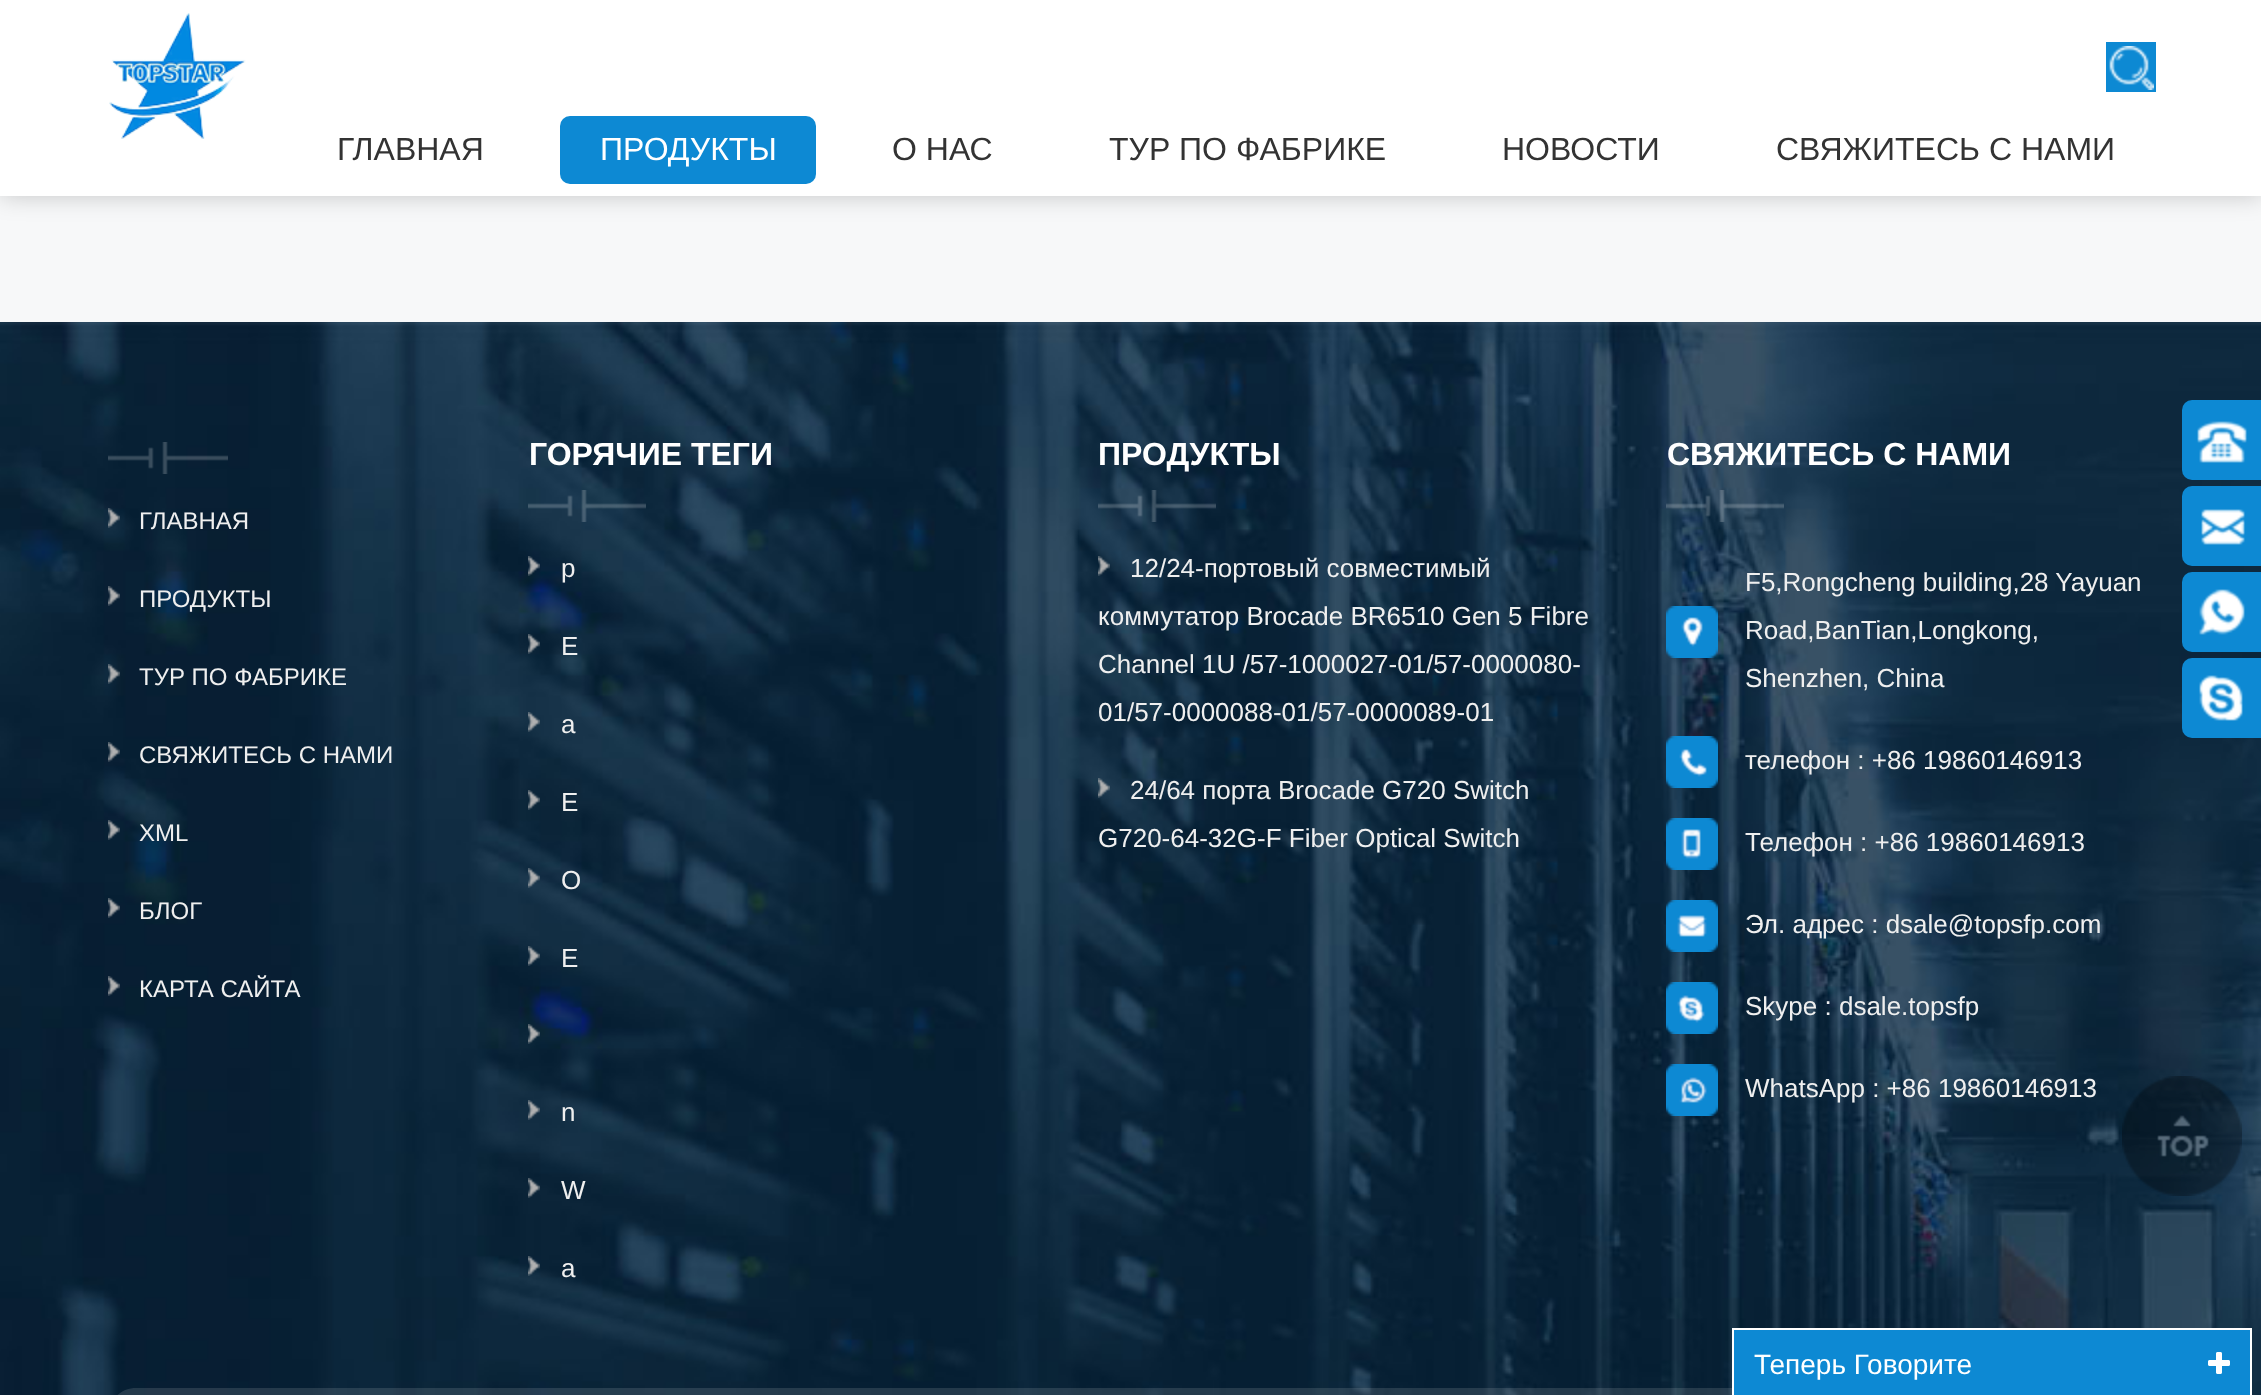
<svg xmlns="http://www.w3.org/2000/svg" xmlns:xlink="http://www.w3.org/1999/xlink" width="2261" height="1395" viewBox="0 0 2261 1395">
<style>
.cls-1{font:32px Liberation Sans;fill:#333333}
.cls-2{font:32px Liberation Sans;fill:#ffffff}
.cls-3{font:24px Liberation Sans;fill:#efefef}
.cls-4{font:bold 32px Liberation Sans;fill:#ffffff}
.cls-5{font:26px Liberation Sans;fill:#efefef}
.cls-6{font:28px Liberation Sans;fill:#ffffff}
</style>
<rect width="100%" height="100%" fill="#f7f8f9"/>
<rect fill="#000000" fill-opacity="0.2" filter="blur(12px)" x="0" y="0" width="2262" height="196"/>
<rect fill="#ffffff" x="0" y="0" width="2261" height="196"/>
<image xlink:href="image0.png" x="109" y="13" width="137" height="126"/>
<rect fill="#0d89d3" x="2106" y="42" width="50" height="50"/>
<image xlink:href="image1.png" x="2109" y="46" width="45" height="44"/>
<rect fill="#0d89d3" x="560" y="116" width="256" height="68" rx="10"/>
<image xlink:href="image2.png" x="0" y="322" width="2261" height="1073"/>
<image xlink:href="image3.png" x="108" y="442" width="120" height="32"/>
<image xlink:href="image4.png" x="108" y="508" width="12" height="20"/>
<image xlink:href="image5.png" x="108" y="586" width="12" height="20"/>
<image xlink:href="image6.png" x="108" y="664" width="12" height="20"/>
<image xlink:href="image7.png" x="108" y="742" width="12" height="20"/>
<image xlink:href="image8.png" x="108" y="820" width="12" height="20"/>
<image xlink:href="image9.png" x="108" y="898" width="12" height="20"/>
<image xlink:href="image10.png" x="108" y="976" width="12" height="20"/>
<image xlink:href="image11.png" x="528" y="490" width="118" height="32"/>
<image xlink:href="image12.png" x="528" y="556" width="12" height="20"/>
<image xlink:href="image13.png" x="528" y="634" width="12" height="20"/>
<image xlink:href="image14.png" x="528" y="712" width="12" height="20"/>
<image xlink:href="image15.png" x="528" y="790" width="12" height="20"/>
<image xlink:href="image16.png" x="528" y="868" width="12" height="20"/>
<image xlink:href="image17.png" x="528" y="946" width="12" height="20"/>
<image xlink:href="image18.png" x="528" y="1024" width="12" height="20"/>
<image xlink:href="image19.png" x="528" y="1100" width="12" height="20"/>
<image xlink:href="image20.png" x="528" y="1178" width="12" height="20"/>
<image xlink:href="image21.png" x="528" y="1256" width="12" height="20"/>
<image xlink:href="image22.png" x="1098" y="490" width="118" height="32"/>
<image xlink:href="image23.png" x="1098" y="556" width="12" height="20"/>
<image xlink:href="image24.png" x="1098" y="778" width="12" height="20"/>
<image xlink:href="image25.png" x="1666" y="490" width="118" height="32"/>
<image xlink:href="image26.png" x="1666" y="606" width="52" height="52"/>
<image xlink:href="image27.png" x="1666" y="736" width="52" height="52"/>
<image xlink:href="image28.png" x="1666" y="818" width="52" height="52"/>
<image xlink:href="image29.png" x="1666" y="900" width="52" height="52"/>
<image xlink:href="image30.png" x="1666" y="982" width="52" height="52"/>
<image xlink:href="image31.png" x="1666" y="1064" width="52" height="52"/>
<path fill="#ffffff" fill-opacity="0.12" d="M136 1388H2156V1395C2156 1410.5 2143.5 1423 2128 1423H108V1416C108 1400.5 120.5 1388 136 1388Z"/>
<rect fill="#0d89d3" x="2182" y="400" width="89" height="80" rx="10"/>
<image xlink:href="image32.png" x="2197" y="421" width="50" height="42"/>
<rect fill="#0d89d3" x="2182" y="486" width="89" height="80" rx="10"/>
<image xlink:href="image33.png" x="2201" y="509" width="44" height="36"/>
<rect fill="#0d89d3" x="2182" y="572" width="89" height="80" rx="10"/>
<image xlink:href="image34.png" x="2199" y="589" width="46" height="46"/>
<rect fill="#0d89d3" x="2182" y="658" width="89" height="80" rx="10"/>
<image xlink:href="image35.png" x="2199" y="675" width="44" height="46"/>
<image xlink:href="image36.png" x="2122" y="1076" width="120" height="120"/>
<rect fill="#0d89d3" x="1734" y="1330" width="516" height="65"/>
<rect fill="#ffffff" x="1732" y="1328" width="520" height="2"/>
<rect fill="#ffffff" x="2250" y="1328" width="2" height="67"/>
<rect fill="#ffffff" x="1732" y="1328" width="2" height="67"/>
<image xlink:href="image37.png" x="2208" y="1352" width="22" height="22"/>
<text class="cls-1" x="337" y="160">ГЛАВНАЯ</text>
<text class="cls-2" x="600" y="160">ПРОДУКТЫ</text>
<text class="cls-1" x="892" y="160">О НАС</text>
<text class="cls-1" x="1109" y="160">ТУР ПО ФАБРИКЕ</text>
<text class="cls-1" x="1502" y="160">НОВОСТИ</text>
<text class="cls-1" x="1776" y="160">СВЯЖИТЕСЬ С НАМИ</text>
<text class="cls-3" x="139" y="529">ГЛАВНАЯ</text>
<text class="cls-3" x="139" y="607">ПРОДУКТЫ</text>
<text class="cls-3" x="139" y="685">ТУР ПО ФАБРИКЕ</text>
<text class="cls-3" x="139" y="763">СВЯЖИТЕСЬ С НАМИ</text>
<text class="cls-3" x="139" y="841">XML</text>
<text class="cls-3" x="139" y="919">БЛОГ</text>
<text class="cls-3" x="139" y="997">КАРТА САЙТА</text>
<text class="cls-4" x="529" y="465">ГОРЯЧИЕ ТЕГИ</text>
<text class="cls-5" x="561" y="577">p</text>
<text class="cls-5" x="561" y="655">E</text>
<text class="cls-5" x="561" y="733">a</text>
<text class="cls-5" x="561" y="811">E</text>
<text class="cls-5" x="561" y="889">O</text>
<text class="cls-5" x="561" y="967">E</text>
<text class="cls-5" x="561" y="1121">n</text>
<text class="cls-5" x="561" y="1199">W</text>
<text class="cls-5" x="561" y="1277">a</text>
<text class="cls-4" x="1098" y="465">ПРОДУКТЫ</text>
<text class="cls-5" x="1130" y="577">12/24-портовый совместимый</text>
<text class="cls-5"><tspan x="1098" y="625">коммутатор Brocade BR6510 Gen 5 Fibre</tspan><tspan x="1098" y="673">Channel 1U /57-1000027-01/57-0000080-</tspan><tspan x="1098" y="721">01/57-0000088-01/57-0000089-01</tspan></text>
<text class="cls-5" x="1130" y="799">24/64 порта Brocade G720 Switch</text>
<text class="cls-5" x="1098" y="847">G720-64-32G-F Fiber Optical Switch</text>
<text class="cls-4" x="1667" y="465">СВЯЖИТЕСЬ С НАМИ</text>
<text class="cls-5"><tspan x="1745" y="591">F5,Rongcheng building,28 Yayuan</tspan><tspan x="1745" y="639">Road,BanTian,Longkong,</tspan><tspan x="1745" y="687">Shenzhen, China</tspan></text>
<text class="cls-5" x="1745" y="769">телефон : +86 19860146913</text>
<text class="cls-5" x="1745" y="851">Телефон : +86 19860146913</text>
<text class="cls-5" x="1745" y="933">Эл. адрес : dsale@topsfp.com</text>
<text class="cls-5" x="1745" y="1015">Skype : dsale.topsfp</text>
<text class="cls-5" x="1745" y="1097">WhatsApp : +86 19860146913</text>
<text class="cls-6" x="1754" y="1374">Теперь Говорите</text>
</svg>
